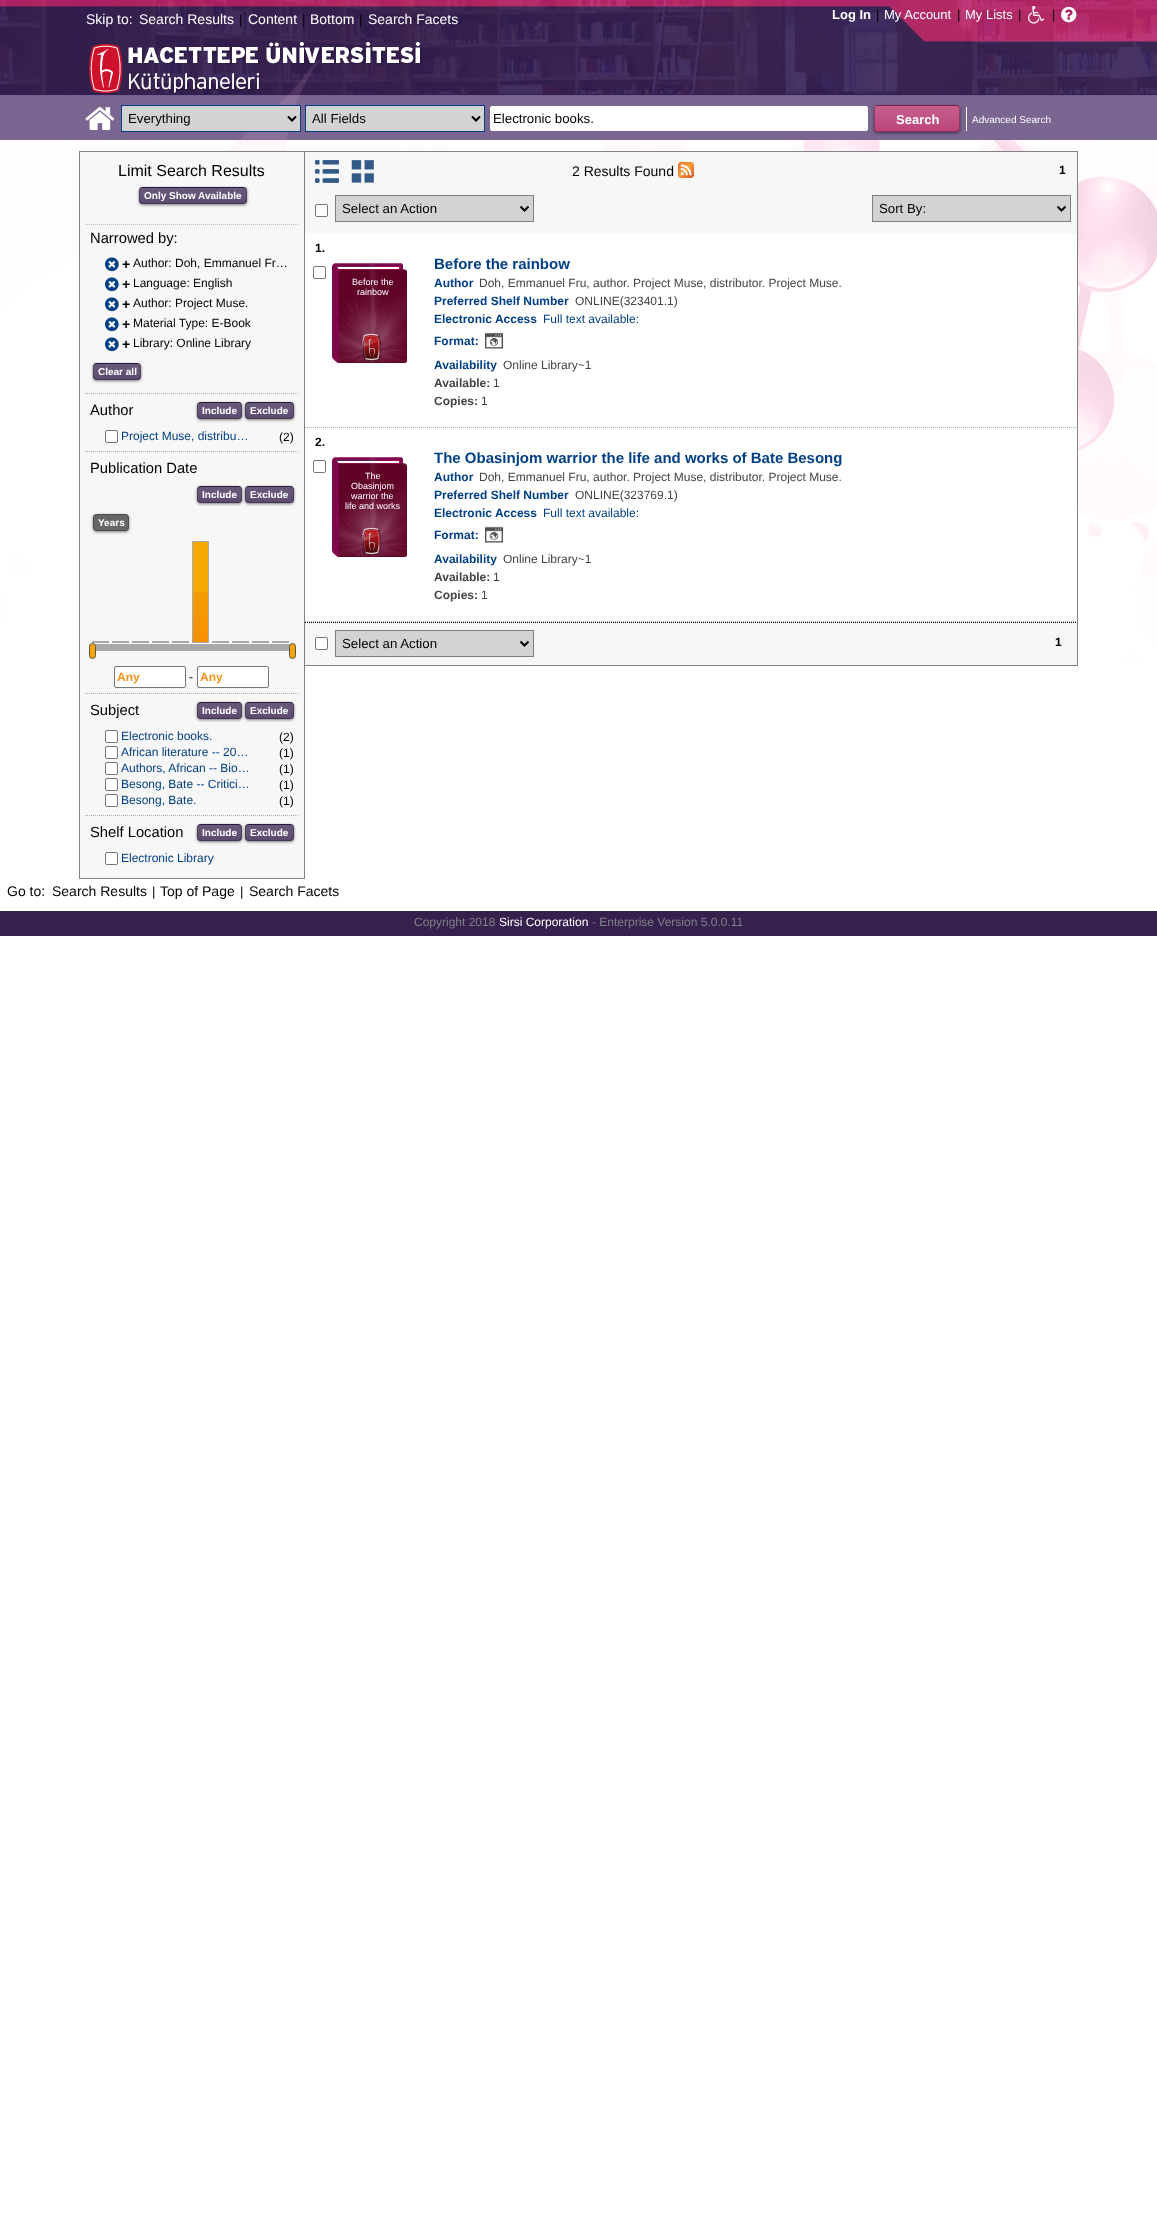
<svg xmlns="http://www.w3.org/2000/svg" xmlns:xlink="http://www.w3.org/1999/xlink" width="1157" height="2221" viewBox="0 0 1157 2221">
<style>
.cls-1{font:14px Liberation Sans;fill:#ffffff}
.cls-2{font:13px Liberation Sans;fill:#000000}
.cls-3{font:bold 13px Liberation Sans;fill:#ffffff}
.cls-4{font:13px Liberation Sans;fill:#ffffff}
.cls-5{font:13.25px Liberation Sans;fill:#000000}
.cls-6{font:10px Liberation Sans;fill:#ffffff}
.cls-7{font:16px Liberation Sans;fill:#000000}
.cls-8{font:bold 10px Liberation Sans;fill:#ffffff}
.cls-9{font:14.75px Liberation Sans;fill:#000000}
.cls-10{font:bold 14px Liberation Sans;fill:#000000}
.cls-11{font:12px Liberation Sans;fill:#000000}
.cls-12{font:12px Liberation Sans;fill:#013f85}
.cls-13{font:bold 12px Liberation Sans;fill:#f6931f}
.cls-14{font:14px Liberation Sans;fill:#000000}
.cls-15{font:bold 12px Liberation Sans;fill:#000000}
.cls-16{font:9px Liberation Sans;fill:#ffffff}
.cls-17{font:bold 15px Liberation Sans;fill:#013f85}
.cls-18{font:bold 12px Liberation Sans;fill:#013f85}
.cls-19{font:12px Liberation Sans;fill:#444444}
.cls-20{font:bold 12px Liberation Sans;fill:#444444}
.cls-21{font:12px Liberation Sans;fill:#808285}
.cls-22{font:12px Liberation Sans;fill:#ffffff}
</style>
<rect width="100%" height="100%" fill="#ffffff"/>
<image xlink:href="image0.png" x="0" y="0" width="1157" height="664"/>
<image xlink:href="image1.png" x="1028" y="5" width="17" height="19"/>
<image xlink:href="image2.png" x="1061" y="6" width="16" height="17"/>
<image xlink:href="image3.png" x="89" y="42" width="333" height="52"/>
<image xlink:href="image4.png" x="85" y="107" width="30" height="23"/>
<rect fill="#d3d3d3" stroke="#013f85" x="121.5" y="105.5" width="179" height="26"/>
<path fill="none" stroke="#000000" stroke-width="2" d="M288 116.5L292 120.5L296 116.5"/>
<rect fill="#d3d3d3" stroke="#013f85" x="305.5" y="105.5" width="179" height="26"/>
<path fill="none" stroke="#000000" stroke-width="2" d="M472 116.5L476 120.5L480 116.5"/>
<rect fill="#ffffff" stroke="#ffffff" x="490.5" y="106.5" width="377" height="24" rx="1.5"/>
<rect fill="#000000" fill-opacity="0.5" filter="blur(1.5px)" x="874" y="106" width="86" height="27" rx="4"/>
<rect fill="#b12865" x="874" y="105" width="86" height="27" rx="4"/>
<image xlink:href="image5.png" x="874" y="106" width="86" height="26"/>
<rect fill="none" stroke="#000000" stroke-opacity="0.25" x="874.5" y="105.5" width="85" height="26" rx="3.5"/>
<rect fill="#ffffff" x="966" y="107" width="1" height="24"/>
<rect fill="#f7f7f7" stroke="#808285" x="79.5" y="151.5" width="225" height="727"/>
<rect fill="#000000" fill-opacity="0.5" filter="blur(1.5px)" x="139" y="188" width="108" height="17" rx="4"/>
<rect fill="#36214e" x="139" y="187" width="108" height="17" rx="4"/>
<image xlink:href="image6.png" x="139" y="188" width="108" height="16"/>
<rect fill="none" stroke="#000000" stroke-opacity="0.25" x="139.5" y="187.5" width="107" height="16" rx="3.5"/>
<path fill="none" stroke="#bbbbbb" stroke-dasharray="1 1" d="M85 224.5H299"/>
<image xlink:href="image7.png" x="105" y="257" width="14" height="15"/>
<image xlink:href="image7.png" x="105" y="277" width="14" height="15"/>
<image xlink:href="image7.png" x="105" y="297" width="14" height="15"/>
<image xlink:href="image7.png" x="105" y="317" width="14" height="15"/>
<image xlink:href="image7.png" x="105" y="337" width="14" height="15"/>
<rect fill="#000000" fill-opacity="0.5" filter="blur(1.5px)" x="93" y="364" width="48" height="17" rx="4"/>
<rect fill="#36214e" x="93" y="363" width="48" height="17" rx="4"/>
<image xlink:href="image8.png" x="93" y="364" width="48" height="16"/>
<rect fill="none" stroke="#000000" stroke-opacity="0.25" x="93.5" y="363.5" width="47" height="16" rx="3.5"/>
<path fill="none" stroke="#aaaaaa" stroke-dasharray="1 1" d="M85 393.5H299"/>
<rect fill="#000000" fill-opacity="0.5" filter="blur(1.5px)" x="197" y="403" width="45" height="17" rx="4"/>
<rect fill="#36214e" x="197" y="402" width="45" height="17" rx="4"/>
<image xlink:href="image9.png" x="197" y="403" width="45" height="16"/>
<rect fill="none" stroke="#000000" stroke-opacity="0.25" x="197.5" y="402.5" width="44" height="16" rx="3.5"/>
<rect fill="#000000" fill-opacity="0.5" filter="blur(1.5px)" x="245" y="403" width="49" height="17" rx="4"/>
<rect fill="#36214e" x="245" y="402" width="49" height="17" rx="4"/>
<image xlink:href="image10.png" x="245" y="403" width="49" height="16"/>
<rect fill="none" stroke="#000000" stroke-opacity="0.25" x="245.5" y="402.5" width="48" height="16" rx="3.5"/>
<rect fill="#ffffff" stroke="#767676" x="105.5" y="430.5" width="12" height="12" rx="1.5"/>
<path fill="none" stroke="#aaaaaa" stroke-dasharray="1 1" d="M85 451.5H299"/>
<rect fill="#000000" fill-opacity="0.5" filter="blur(1.5px)" x="197" y="487" width="45" height="17" rx="4"/>
<rect fill="#36214e" x="197" y="486" width="45" height="17" rx="4"/>
<image xlink:href="image9.png" x="197" y="487" width="45" height="16"/>
<rect fill="none" stroke="#000000" stroke-opacity="0.25" x="197.5" y="486.5" width="44" height="16" rx="3.5"/>
<rect fill="#000000" fill-opacity="0.5" filter="blur(1.5px)" x="245" y="487" width="49" height="17" rx="4"/>
<rect fill="#36214e" x="245" y="486" width="49" height="17" rx="4"/>
<image xlink:href="image10.png" x="245" y="487" width="49" height="16"/>
<rect fill="none" stroke="#000000" stroke-opacity="0.25" x="245.5" y="486.5" width="48" height="16" rx="3.5"/>
<rect fill="#000000" fill-opacity="0.5" filter="blur(1.5px)" x="93" y="515" width="36" height="17" rx="4"/>
<rect fill="#666666" x="93" y="514" width="36" height="17" rx="4"/>
<rect fill="none" stroke="#000000" stroke-opacity="0.25" x="93.5" y="514.5" width="35" height="16" rx="3.5"/>
<rect fill="#aaaaaa" x="92" y="641" width="17" height="2"/>
<rect fill="#aaaaaa" x="112" y="641" width="17" height="2"/>
<rect fill="#aaaaaa" x="132" y="641" width="17" height="2"/>
<rect fill="#aaaaaa" x="152" y="641" width="17" height="2"/>
<rect fill="#aaaaaa" x="172" y="641" width="17" height="2"/>
<rect fill="#f4aa00" x="193" y="542" width="15" height="50"/>
<image xlink:href="image11.png" x="193" y="592" width="15" height="50"/>
<rect fill="none" stroke="#aaaaaa" x="192.5" y="541.5" width="16" height="101"/>
<rect fill="#aaaaaa" x="212" y="641" width="17" height="2"/>
<rect fill="#aaaaaa" x="232" y="641" width="17" height="2"/>
<rect fill="#aaaaaa" x="252" y="641" width="17" height="2"/>
<rect fill="#aaaaaa" x="272" y="641" width="17" height="2"/>
<rect fill="none" stroke="#aaaaaa" x="91.5" y="644.5" width="201" height="6"/>
<rect fill="#a9a9a9" x="92" y="645" width="200" height="5"/>
<rect fill="#ffa406" stroke="#555555" x="89.5" y="643.5" width="6" height="15" rx="3"/>
<rect fill="#ffa406" stroke="#555555" x="289.5" y="643.5" width="6" height="15" rx="3"/>
<rect fill="#ffffff" stroke="#767676" x="114.5" y="666.5" width="71" height="21" rx="1.5"/>
<rect fill="#ffffff" stroke="#767676" x="197.5" y="666.5" width="71" height="21" rx="1.5"/>
<path fill="none" stroke="#aaaaaa" stroke-dasharray="1 1" d="M85 693.5H299"/>
<rect fill="#000000" fill-opacity="0.5" filter="blur(1.5px)" x="197" y="703" width="45" height="17" rx="4"/>
<rect fill="#36214e" x="197" y="702" width="45" height="17" rx="4"/>
<image xlink:href="image9.png" x="197" y="703" width="45" height="16"/>
<rect fill="none" stroke="#000000" stroke-opacity="0.25" x="197.5" y="702.5" width="44" height="16" rx="3.5"/>
<rect fill="#000000" fill-opacity="0.5" filter="blur(1.5px)" x="245" y="703" width="49" height="17" rx="4"/>
<rect fill="#36214e" x="245" y="702" width="49" height="17" rx="4"/>
<image xlink:href="image10.png" x="245" y="703" width="49" height="16"/>
<rect fill="none" stroke="#000000" stroke-opacity="0.25" x="245.5" y="702.5" width="48" height="16" rx="3.5"/>
<rect fill="#ffffff" stroke="#767676" x="105.5" y="730.5" width="12" height="12" rx="1.5"/>
<rect fill="#ffffff" stroke="#767676" x="105.5" y="746.5" width="12" height="12" rx="1.5"/>
<rect fill="#ffffff" stroke="#767676" x="105.5" y="762.5" width="12" height="12" rx="1.5"/>
<rect fill="#ffffff" stroke="#767676" x="105.5" y="778.5" width="12" height="12" rx="1.5"/>
<rect fill="#ffffff" stroke="#767676" x="105.5" y="794.5" width="12" height="12" rx="1.5"/>
<path fill="none" stroke="#aaaaaa" stroke-dasharray="1 1" d="M85 815.5H299"/>
<rect fill="#000000" fill-opacity="0.5" filter="blur(1.5px)" x="197" y="825" width="45" height="17" rx="4"/>
<rect fill="#36214e" x="197" y="824" width="45" height="17" rx="4"/>
<image xlink:href="image9.png" x="197" y="825" width="45" height="16"/>
<rect fill="none" stroke="#000000" stroke-opacity="0.25" x="197.5" y="824.5" width="44" height="16" rx="3.5"/>
<rect fill="#000000" fill-opacity="0.5" filter="blur(1.5px)" x="245" y="825" width="49" height="17" rx="4"/>
<rect fill="#36214e" x="245" y="824" width="49" height="17" rx="4"/>
<image xlink:href="image10.png" x="245" y="825" width="49" height="16"/>
<rect fill="none" stroke="#000000" stroke-opacity="0.25" x="245.5" y="824.5" width="48" height="16" rx="3.5"/>
<rect fill="#ffffff" stroke="#767676" x="105.5" y="852.5" width="12" height="12" rx="1.5"/>
<rect fill="#f7f7f7" stroke="#808285" x="304.5" y="151.5" width="773" height="514"/>
<image xlink:href="image12.png" x="315" y="160" width="24" height="23"/>
<image xlink:href="image13.png" x="351" y="160" width="23" height="23"/>
<rect fill="#ffffff" stroke="#767676" x="315.5" y="204.5" width="12" height="12" rx="1.5"/>
<rect fill="#d3d3d3" stroke="#808080" x="335.5" y="195.5" width="198" height="26"/>
<path fill="none" stroke="#000000" stroke-width="2" d="M520.5 206.5L524.5 210.5L528.5 206.5"/>
<image xlink:href="image14.png" x="678" y="162" width="16" height="16"/>
<rect fill="#d3d3d3" stroke="#808080" x="872.5" y="195.5" width="198" height="26"/>
<path fill="none" stroke="#000000" stroke-width="2" d="M1057.5 206.5L1061.5 210.5L1065.5 206.5"/>
<rect fill="#ffffff" x="305" y="234" width="772" height="388"/>
<path fill="none" stroke="#acacac" stroke-dasharray="1 1" d="M305 427.5H1077"/>
<rect fill="none" stroke="#767676" x="313.5" y="266.5" width="12" height="12" rx="1.5"/>
<image xlink:href="image15.png" x="332" y="263" width="75" height="100"/>
<image xlink:href="image16.png" x="485" y="332" width="18" height="17"/>
<path fill="none" stroke="#acacac" stroke-dasharray="1 1" d="M305 621.5H1077"/>
<rect fill="none" stroke="#767676" x="313.5" y="460.5" width="12" height="12" rx="1.5"/>
<image xlink:href="image15.png" x="332" y="457" width="75" height="100"/>
<image xlink:href="image16.png" x="485" y="526" width="18" height="17"/>
<path fill="none" stroke="#000000" stroke-dasharray="1 1" d="M305 622.5H1077"/>
<rect fill="#ffffff" stroke="#767676" x="315.5" y="637.5" width="12" height="12" rx="1.5"/>
<rect fill="#d3d3d3" stroke="#808080" x="335.5" y="630.5" width="198" height="26"/>
<path fill="none" stroke="#000000" stroke-width="2" d="M520.5 641.5L524.5 645.5L528.5 641.5"/>
<rect fill="#36214e" x="0" y="911" width="1157" height="25"/>
<text class="cls-1" x="86" y="24">Skip to:</text>
<text class="cls-1" x="139" y="24">Search Results</text>
<text class="cls-2" x="239" y="24">|</text>
<text class="cls-1" x="248" y="24">Content</text>
<text class="cls-2" x="302" y="24">|</text>
<text class="cls-1" x="310" y="24">Bottom</text>
<text class="cls-2" x="359" y="24">|</text>
<text class="cls-1" x="368" y="24">Search Facets</text>
<text class="cls-3" x="832" y="19">Log In</text>
<text class="cls-2" x="876" y="19">|</text>
<text class="cls-4" x="884" y="19">My Account</text>
<text class="cls-2" x="957" y="19">|</text>
<text class="cls-4" x="965" y="19">My Lists</text>
<text class="cls-2" x="1018" y="19">|</text>
<text class="cls-2" x="1052" y="19">|</text>
<text class="cls-5" x="128" y="123">Everything</text>
<text class="cls-5" x="312" y="123">All Fields</text>
<text class="cls-5" x="493" y="123">Electronic books.</text>
<text class="cls-3" x="896" y="124">Search</text>
<text class="cls-6" x="972" y="123">Advanced Search</text>
<text class="cls-7" x="118" y="176">Limit Search Results</text>
<text class="cls-8" x="144" y="199">Only Show Available</text>
<text class="cls-9" x="90" y="243">Narrowed by:</text>
<text class="cls-10" x="122" y="269">+</text>
<text class="cls-11" x="133" y="267">Author: Doh, Emmanuel Fr…</text>
<text class="cls-10" x="122" y="289">+</text>
<text class="cls-11" x="133" y="287">Language: English</text>
<text class="cls-10" x="122" y="309">+</text>
<text class="cls-11" x="133" y="307">Author: Project Muse.</text>
<text class="cls-10" x="122" y="329">+</text>
<text class="cls-11" x="133" y="327">Material Type: E-Book</text>
<text class="cls-10" x="122" y="349">+</text>
<text class="cls-11" x="133" y="347">Library: Online Library</text>
<text class="cls-8" x="98" y="375">Clear all</text>
<text class="cls-9" x="90" y="415">Author</text>
<text class="cls-8" x="202" y="414">Include</text>
<text class="cls-8" x="250" y="414">Exclude</text>
<text class="cls-12" x="121" y="440">Project Muse, distribu…</text>
<text class="cls-11" x="279" y="441">(2)</text>
<text class="cls-9" x="90" y="473">Publication Date</text>
<text class="cls-8" x="202" y="498">Include</text>
<text class="cls-8" x="250" y="498">Exclude</text>
<text class="cls-8" x="98" y="526">Years</text>
<text class="cls-13" x="117" y="681">Any</text>
<text class="cls-11" x="189" y="681">-</text>
<text class="cls-13" x="200" y="681">Any</text>
<text class="cls-9" x="90" y="715">Subject</text>
<text class="cls-8" x="202" y="714">Include</text>
<text class="cls-8" x="250" y="714">Exclude</text>
<text class="cls-12" x="121" y="740">Electronic books.</text>
<text class="cls-11" x="279" y="741">(2)</text>
<text class="cls-12" x="121" y="756">African literature -- 20…</text>
<text class="cls-11" x="279" y="757">(1)</text>
<text class="cls-12" x="121" y="772">Authors, African -- Bio…</text>
<text class="cls-11" x="279" y="773">(1)</text>
<text class="cls-12" x="121" y="788">Besong, Bate -- Critici…</text>
<text class="cls-11" x="279" y="789">(1)</text>
<text class="cls-12" x="121" y="804">Besong, Bate.</text>
<text class="cls-11" x="279" y="805">(1)</text>
<text class="cls-9" x="90" y="837">Shelf Location</text>
<text class="cls-8" x="202" y="836">Include</text>
<text class="cls-8" x="250" y="836">Exclude</text>
<text class="cls-12" x="121" y="862">Electronic Library</text>
<text class="cls-5" x="342" y="213">Select an Action</text>
<text class="cls-14" x="572" y="176">2 Results Found</text>
<text class="cls-15" x="1059" y="174">1</text>
<text class="cls-5" x="879" y="213">Sort By:</text>
<text class="cls-15" x="315" y="252">1.</text>
<text class="cls-16" x="352" y="285">Before the</text>
<text class="cls-16" x="357" y="295">rainbow</text>
<text class="cls-17" x="434" y="269">Before the rainbow</text>
<text class="cls-18" x="434" y="287">Author</text>
<text class="cls-19" x="479" y="287">Doh, Emmanuel Fru, author. Project Muse, distributor. Project Muse.</text>
<text class="cls-18" x="434" y="305">Preferred Shelf Number</text>
<text class="cls-19" x="575" y="305">ONLINE(323401.1)</text>
<text class="cls-18" x="434" y="323">Electronic Access</text>
<text class="cls-12" x="543" y="323">Full text available:</text>
<text class="cls-18" x="434" y="345">Format:</text>
<text class="cls-18" x="434" y="369">Availability</text>
<text class="cls-19" x="503" y="369">Online Library~1</text>
<text class="cls-20" x="434" y="387">Available:</text>
<text class="cls-19" x="493" y="387">1</text>
<text class="cls-20" x="434" y="405">Copies:</text>
<text class="cls-19" x="481" y="405">1</text>
<text class="cls-15" x="315" y="446">2.</text>
<text class="cls-16" x="365" y="479">The</text>
<text class="cls-16"><tspan x="351" y="489">Obasinjom</tspan><tspan x="351" y="499">warrior the</tspan></text>
<text class="cls-16" x="345" y="509">life and works</text>
<text class="cls-17" x="434" y="463">The Obasinjom warrior the life and works of Bate Besong</text>
<text class="cls-18" x="434" y="481">Author</text>
<text class="cls-19" x="479" y="481">Doh, Emmanuel Fru, author. Project Muse, distributor. Project Muse.</text>
<text class="cls-18" x="434" y="499">Preferred Shelf Number</text>
<text class="cls-19" x="575" y="499">ONLINE(323769.1)</text>
<text class="cls-18" x="434" y="517">Electronic Access</text>
<text class="cls-12" x="543" y="517">Full text available:</text>
<text class="cls-18" x="434" y="539">Format:</text>
<text class="cls-18" x="434" y="563">Availability</text>
<text class="cls-19" x="503" y="563">Online Library~1</text>
<text class="cls-20" x="434" y="581">Available:</text>
<text class="cls-19" x="493" y="581">1</text>
<text class="cls-20" x="434" y="599">Copies:</text>
<text class="cls-19" x="481" y="599">1</text>
<text class="cls-5" x="342" y="648">Select an Action</text>
<text class="cls-15" x="1055" y="646">1</text>
<text class="cls-14" x="7" y="896">Go to:</text>
<text class="cls-14" x="52" y="896">Search Results</text>
<text class="cls-2" x="152" y="896">|</text>
<text class="cls-14" x="160" y="896">Top of Page</text>
<text class="cls-2" x="240" y="896">|</text>
<text class="cls-14" x="249" y="896">Search Facets</text>
<text class="cls-21" x="414" y="926">Copyright 2018</text>
<text class="cls-22" x="499" y="926">Sirsi Corporation</text>
<text class="cls-21" x="592" y="926">- Enterprise Version 5.0.0.11</text>
</svg>
